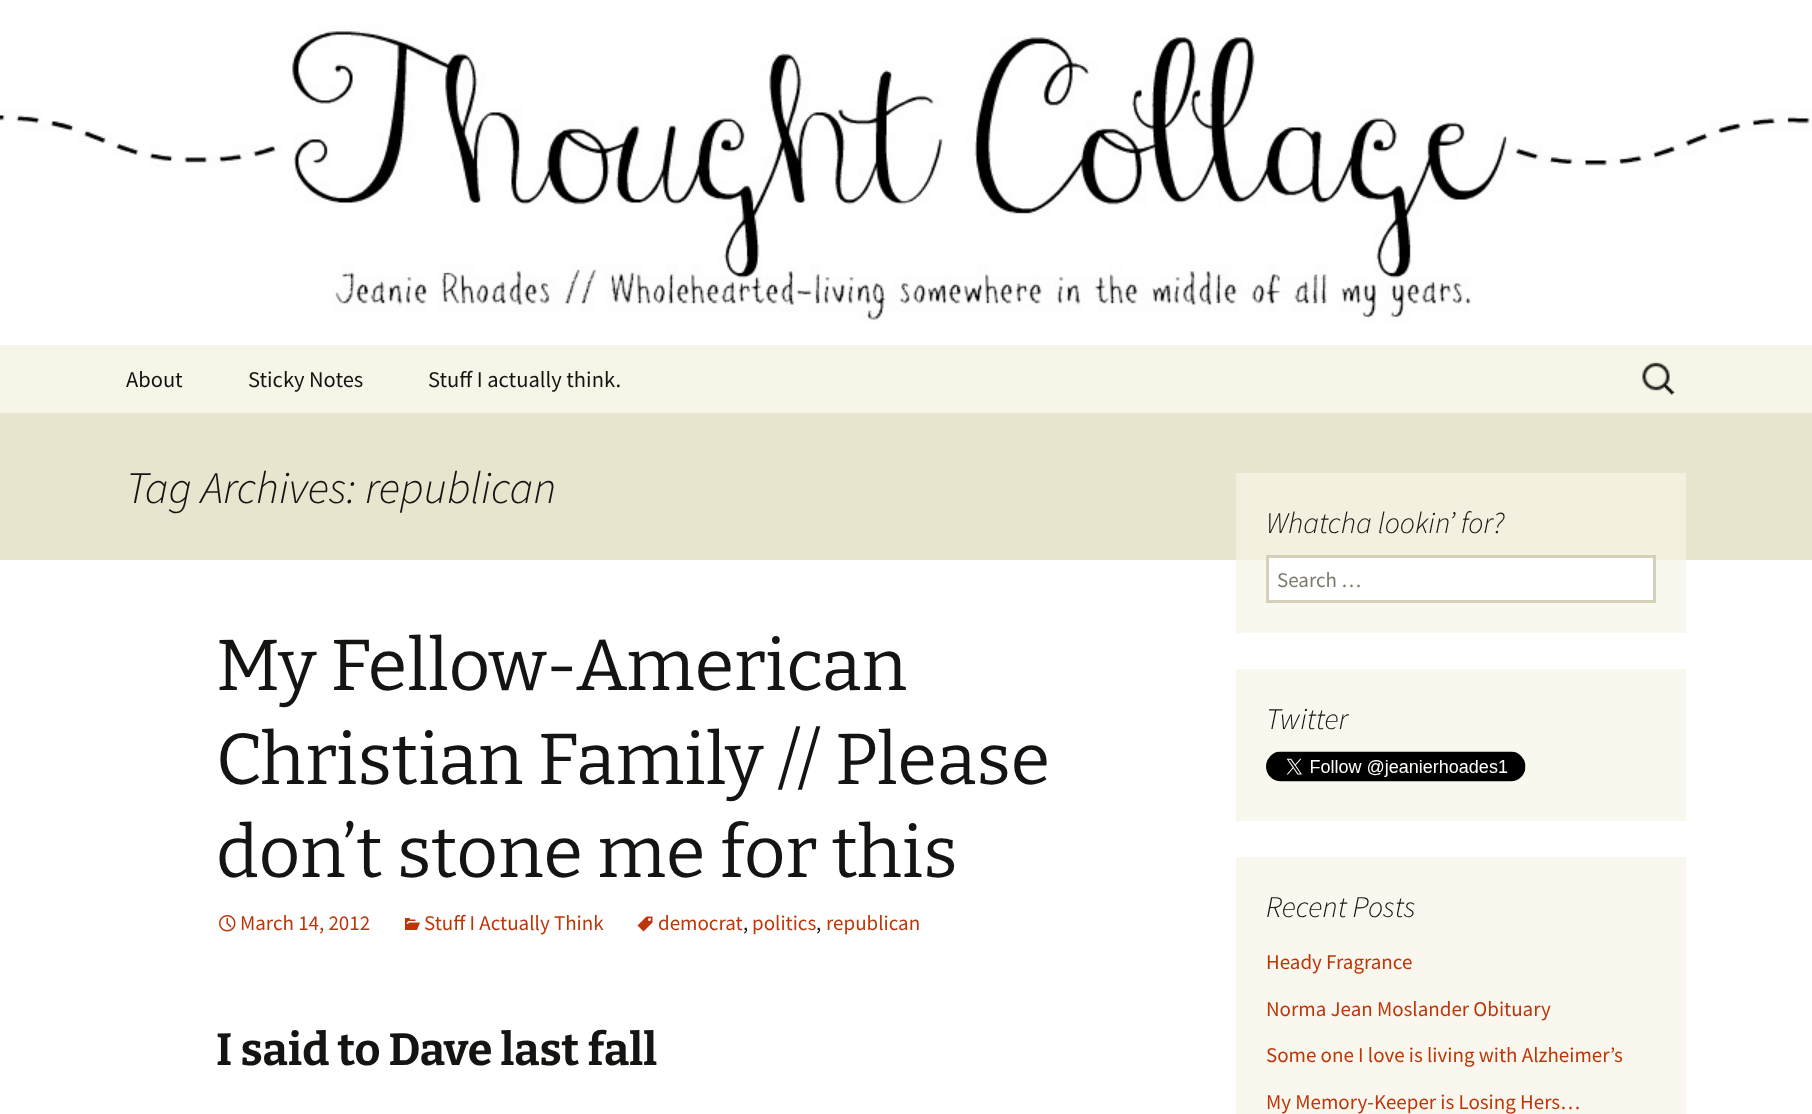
<svg xmlns="http://www.w3.org/2000/svg" xmlns:xlink="http://www.w3.org/1999/xlink" width="1812" height="1114" viewBox="0 0 1812 1114">
<style>
.cls-1{font:22.5px Source Sans Pro;fill:#141412}
.cls-2{font:italic 300 45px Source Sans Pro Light;fill:#141412}
.cls-3{font:72px Bitter;fill:#141412}
.cls-4{font:21px Source Sans Pro;fill:#bc360a}
.cls-5{font:21px Source Sans Pro;fill:#141412}
.cls-6{font:bold 45px Bitter;fill:#141412}
.cls-7{font:italic 300 30px Source Sans Pro Light;fill:#141412}
.cls-8{font:21px Source Sans Pro;fill:#7d7b6d}
</style>
<rect width="100%" height="100%" fill="#ffffff"/>
<rect fill="#f9f8ee" x="1236" y="560" width="450" height="73"/>
<image xlink:href="image0.png" x="0" y="25" width="1812" height="299"/>
<rect fill="#f7f5e7" x="0" y="345" width="1812" height="68"/>
<image xlink:href="image1.png" x="1642" y="362" width="33" height="33"/>
<rect fill="#e8e5ce" x="0" y="413" width="1812" height="147"/>
<rect fill="#f3f0e0" x="1236" y="473" width="450" height="87"/>
<image xlink:href="image2.png" x="219" y="915" width="17" height="17"/>
<image xlink:href="image3.png" x="405" y="918" width="15" height="12"/>
<image xlink:href="image4.png" x="637" y="916" width="16" height="16"/>
<rect fill="#ffffff" stroke="#d4d0ba" stroke-width="3" x="1267.5" y="556.5" width="387" height="45"/>
<rect fill="#f9f8ee" x="1236" y="669" width="450" height="152"/>
<image xlink:href="image5.png" x="1266" y="751" width="260" height="31"/>
<rect fill="#faf8ee" x="1236" y="857" width="450" height="257"/>
<text class="cls-1" x="126" y="387">About</text>
<text class="cls-1" x="248" y="387">Sticky Notes</text>
<text class="cls-1" x="428" y="387">Stuff I actually think.</text>
<text class="cls-2" x="126" y="503">Tag Archives: republican</text>
<text class="cls-3"><tspan x="216" y="690">My Fellow-American</tspan><tspan x="216" y="784">Christian Family // Please</tspan><tspan x="216" y="877">don’t stone me for this</tspan></text>
<text class="cls-4" x="240" y="930">March 14, 2012</text>
<text class="cls-4" x="424" y="930">Stuff I Actually Think</text>
<text class="cls-4" x="658" y="930">democrat</text>
<text class="cls-5" x="743" y="930">,</text>
<text class="cls-4" x="752" y="930">politics</text>
<text class="cls-5" x="816" y="930">,</text>
<text class="cls-4" x="826" y="930">republican</text>
<text class="cls-6" x="216" y="1065">I said to Dave last fall</text>
<text class="cls-7" x="1266" y="533">Whatcha lookin’ for?</text>
<text class="cls-8" x="1277" y="587">Search …</text>
<text class="cls-7" x="1266" y="729">Twitter</text>
<text class="cls-7" x="1266" y="917">Recent Posts</text>
<text class="cls-4" x="1266" y="969">Heady Fragrance</text>
<text class="cls-4" x="1266" y="1016">Norma Jean Moslander Obituary</text>
<text class="cls-4" x="1266" y="1062">Some one I love is living with Alzheimer’s</text>
<text class="cls-4" x="1266" y="1109">My Memory-Keeper is Losing Hers…</text>
</svg>
